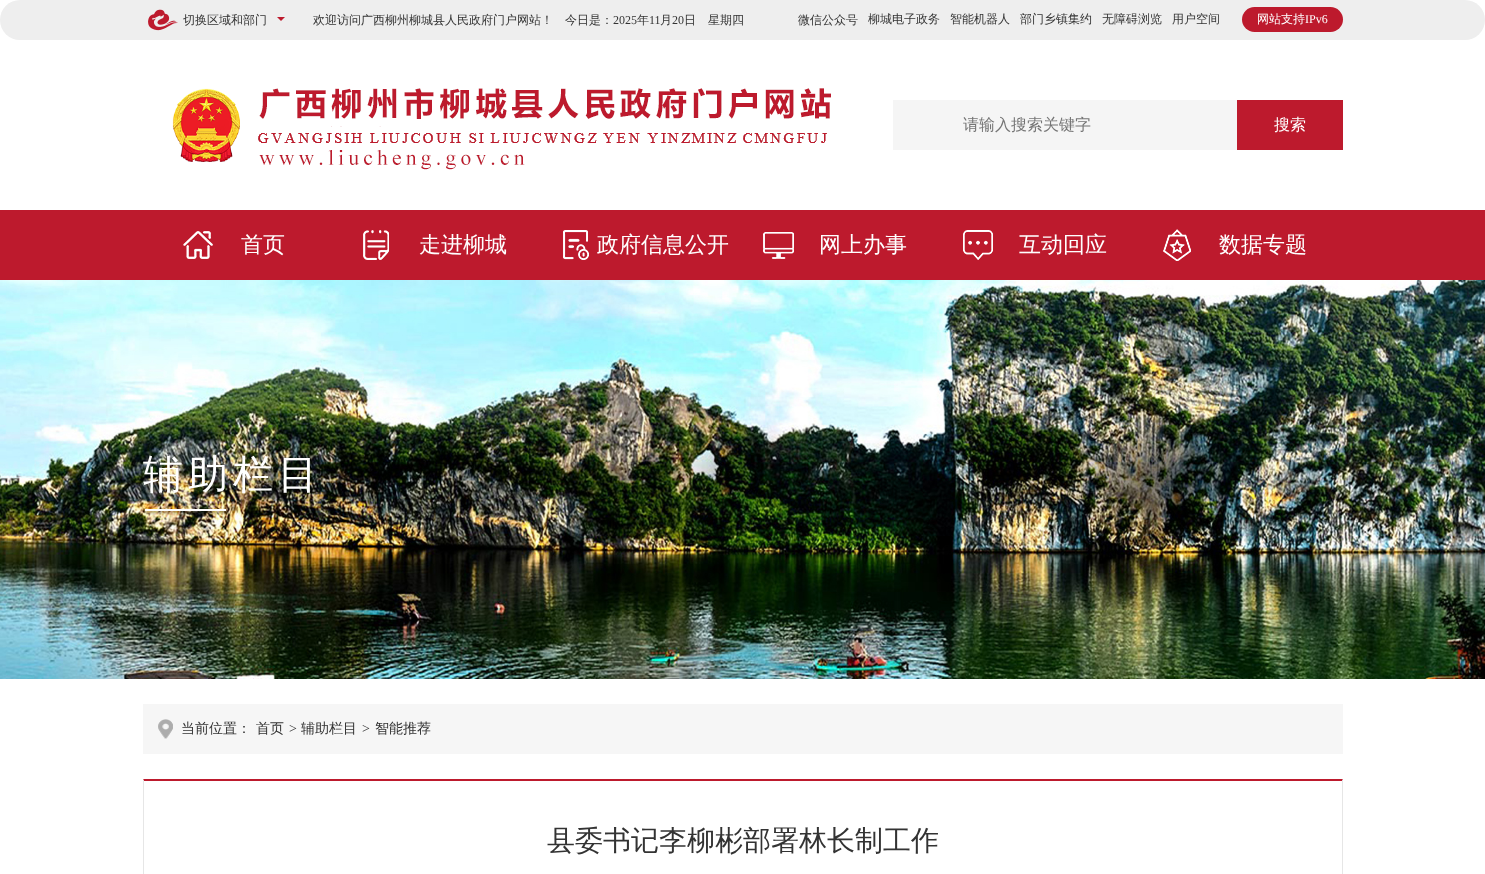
<svg xmlns="http://www.w3.org/2000/svg" xmlns:xlink="http://www.w3.org/1999/xlink" width="1485" height="874" viewBox="0 0 1485 874">
<style>
.cls-1{font:500 12px WenQuanYi Zen Hei;fill:#333333}
.cls-2{font:12px Liberation Serif;fill:#333333}
.cls-3{font:500 12px WenQuanYi Zen Hei;fill:#ffffff}
.cls-4{font:12px Liberation Serif;fill:#ffffff}
.cls-5{font:500 16px WenQuanYi Zen Hei;fill:#757575}
.cls-6{font:500 16px WenQuanYi Zen Hei;fill:#ffffff}
.cls-7{font:500 22px WenQuanYi Zen Hei;fill:#ffffff}
.cls-8{font:500 40px WenQuanYi Zen Hei;letter-spacing:5px;fill:#ffffff}
.cls-9{font:500 14px WenQuanYi Zen Hei;fill:#333333}
.cls-10{font:14px Liberation Serif;fill:#333333}
.cls-11{font:500 28px WenQuanYi Zen Hei;fill:#333333}
</style>
<rect width="100%" height="100%" fill="#ffffff"/>
<rect fill="#eeeeee" x="0" y="0" width="1485" height="40" rx="20"/>
<image xlink:href="image0.png" x="148" y="9" width="30" height="22"/>
<path fill="#bd1a2d" d="M277 17H285L281 21Z"/>
<rect fill="#bd1a2d" x="1242" y="7" width="101" height="25" rx="12.5"/>
<image xlink:href="image1.png" x="172" y="88" width="68" height="74"/>
<image xlink:href="image2.png" x="258" y="88" width="573" height="82"/>
<rect fill="#f5f5f5" x="893" y="100" width="344" height="50"/>
<rect fill="#bd1a2d" x="1237" y="100" width="106" height="50"/>
<rect fill="#bd1a2d" x="0" y="210" width="1485" height="70"/>
<image xlink:href="image3.png" x="183" y="231" width="30" height="28"/>
<image xlink:href="image4.png" x="363" y="230" width="26" height="30"/>
<image xlink:href="image5.png" x="563" y="230" width="26" height="30"/>
<image xlink:href="image6.png" x="763" y="232" width="31" height="27"/>
<image xlink:href="image7.png" x="963" y="230" width="30" height="30"/>
<image xlink:href="image8.png" x="1163" y="229" width="28" height="32"/>
<image xlink:href="image9.png" x="0" y="280" width="1485" height="399"/>
<image xlink:href="image10.png" x="144" y="509" width="83" height="6"/>
<rect fill="#f6f6f6" x="143" y="704" width="1200" height="50"/>
<image xlink:href="image11.png" x="158" y="719" width="15" height="20"/>
<path fill="#bd1a2d" d="M143 779H1343L1342 781H144Z"/>
<path fill="#e6e6e6" d="M1343 779V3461L1342 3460V781Z"/>
<path fill="#e6e6e6" d="M143 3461V779L144 781V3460Z"/>
<text class="cls-1" x="183" y="24">切换区域和部门</text>
<text class="cls-1" x="313" y="24">欢迎访问广西柳州柳城县人民政府门户网站！　今日是：</text>
<text class="cls-2" x="613" y="24">2025</text>
<text class="cls-1" x="637" y="24">年</text>
<text class="cls-2" x="649" y="24">11</text>
<text class="cls-1" x="660" y="24">月</text>
<text class="cls-2" x="672" y="24">20</text>
<text class="cls-1" x="684" y="24">日　星期四</text>
<text class="cls-1" x="798" y="24">微信公众号</text>
<text class="cls-1" x="868" y="23">柳城电子政务</text>
<text class="cls-1" x="950" y="23">智能机器人</text>
<text class="cls-1" x="1020" y="23">部门乡镇集约</text>
<text class="cls-1" x="1102" y="23">无障碍浏览</text>
<text class="cls-1" x="1172" y="23">用户空间</text>
<text class="cls-3" x="1257" y="23">网站支持</text>
<text class="cls-4" x="1305" y="23">IPv6</text>
<text class="cls-5" x="963" y="130">请输入搜索关键字</text>
<text class="cls-6" x="1274" y="130">搜索</text>
<text class="cls-7" x="241" y="252">首页</text>
<text class="cls-7" x="419" y="252">走进柳城</text>
<text class="cls-7" x="597" y="252">政府信息公开</text>
<text class="cls-7" x="819" y="252">网上办事</text>
<text class="cls-7" x="1019" y="252">互动回应</text>
<text class="cls-7" x="1219" y="252">数据专题</text>
<text class="cls-8" x="143" y="488">辅助栏目</text>
<text class="cls-9" x="181" y="733">当前位置：</text>
<text class="cls-9" x="256" y="733">首页</text>
<text class="cls-10" x="289" y="733">&gt;</text>
<text class="cls-9" x="301" y="733">辅助栏目</text>
<text class="cls-10" x="362" y="733">&gt;</text>
<text class="cls-9" x="375" y="733">智能推荐</text>
<text class="cls-11" x="547" y="850">县委书记李柳彬部署林长制工作</text>
</svg>
